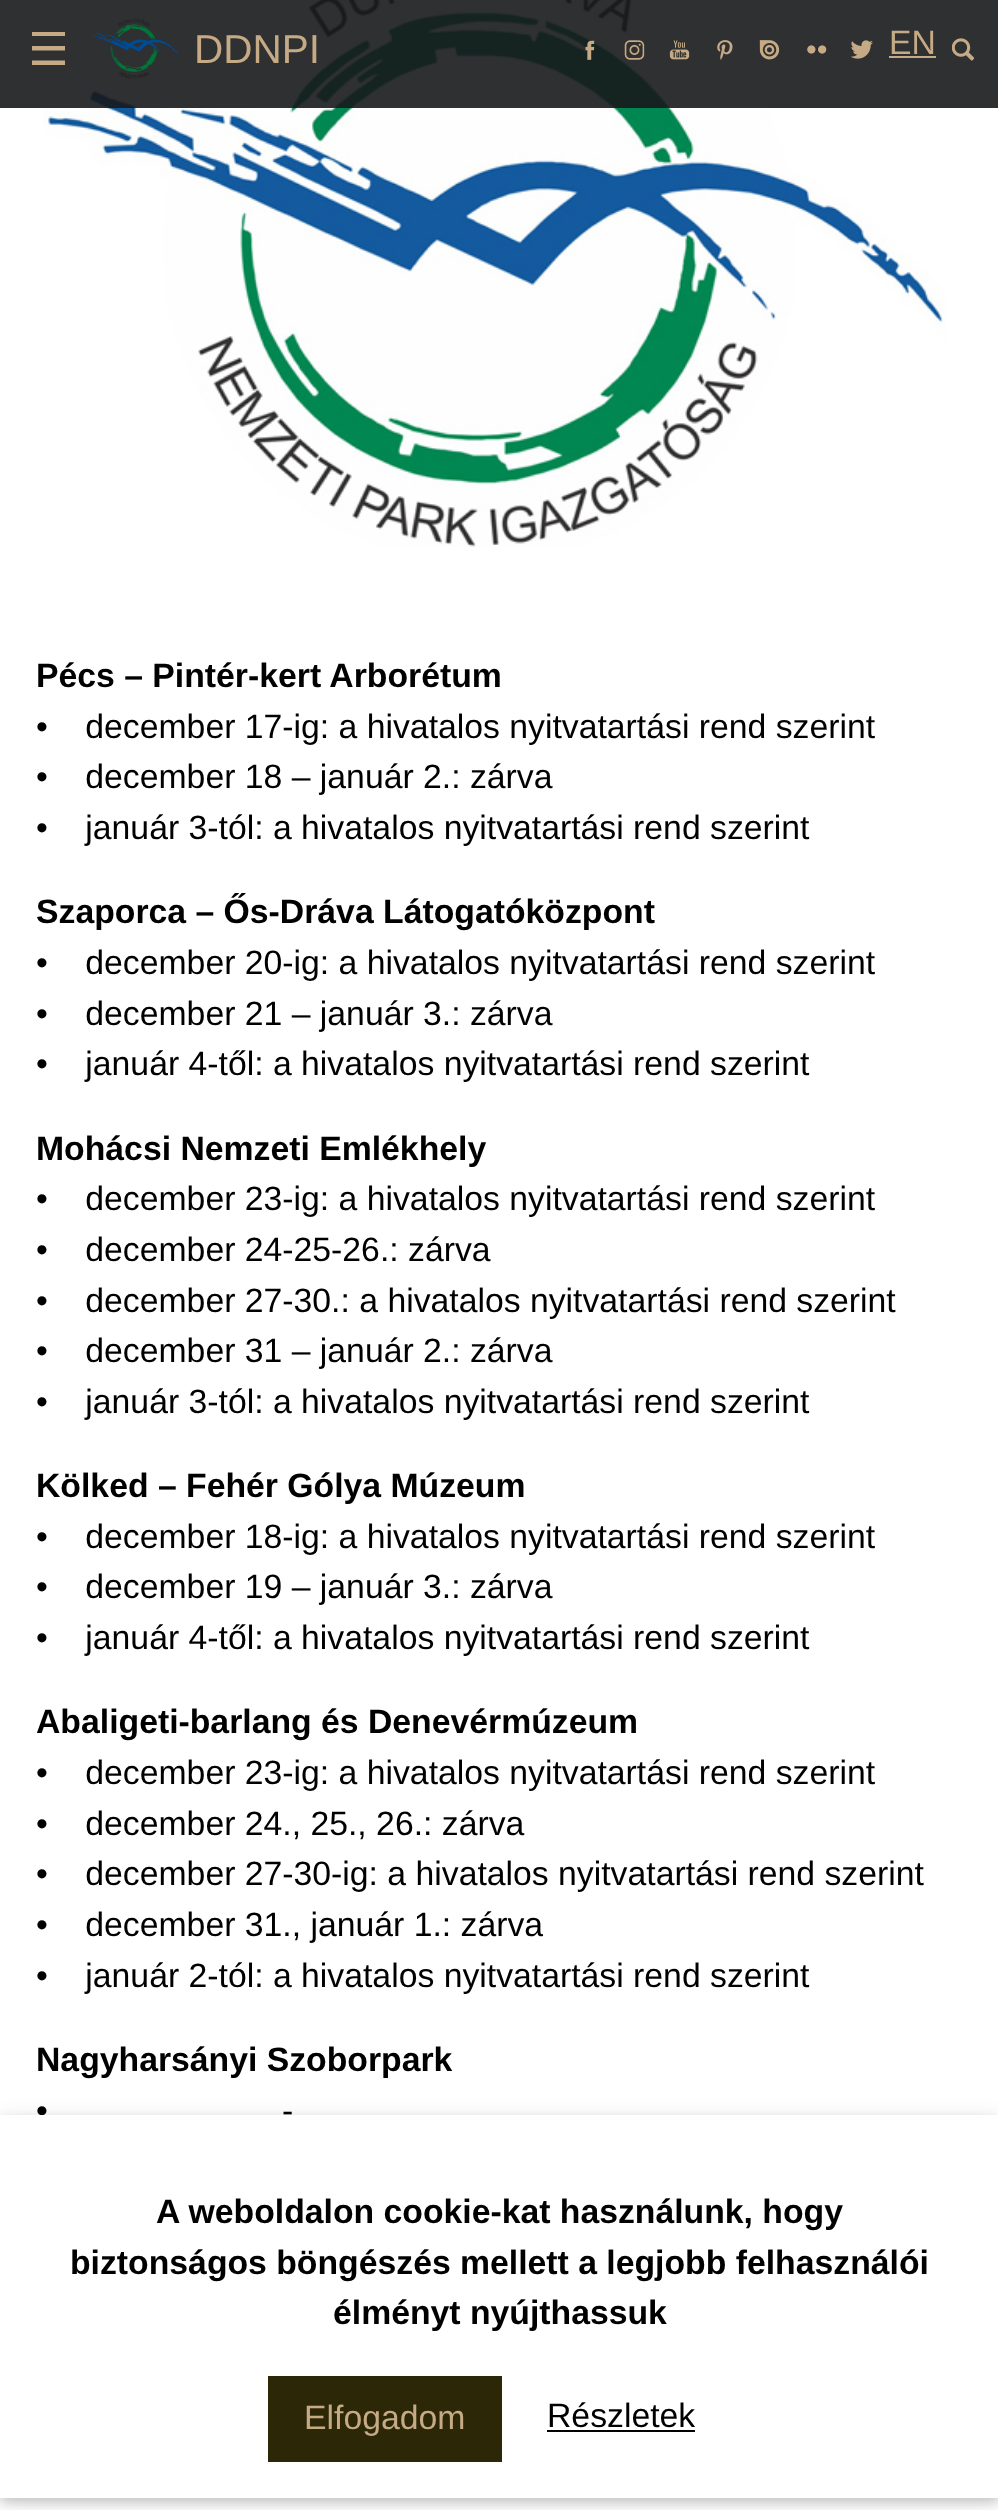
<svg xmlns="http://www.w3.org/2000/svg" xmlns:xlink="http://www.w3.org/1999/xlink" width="998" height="2510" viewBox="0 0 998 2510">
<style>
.cls-1{font:40.5px Liberation Sans;fill:#c5aa85}
.cls-2{font:33.75px Liberation Sans;fill:#c5aa85}
.cls-3{font:bold 33.75px Liberation Sans;fill:#000000}
.cls-4{font:33.75px Liberation Sans;fill:#000000}
</style>
<defs>
<clipPath id="clip1"><rect x="32" y="32" width="33" height="33"/></clipPath>
</defs>
<rect width="100%" height="100%" fill="#ffffff"/>
<image xlink:href="image9.png" x="43" y="0" width="904" height="547"/>
<rect fill="#17191c" fill-opacity="0.9" x="0" y="0" width="998" height="108"/>
<g clip-path="url(#clip1)">
<path fill="#c5aa85" d="M31.5 60.5H65V65H31.5ZM31.5 46H65V50.5H31.5ZM31.5 31.5H65V36H31.5Z"/>
</g>
<image xlink:href="image0.png" x="92" y="18" width="88" height="61"/>
<image xlink:href="image1.png" x="585" y="40" width="10" height="20"/>
<image xlink:href="image2.png" x="624" y="40" width="21" height="20"/>
<image xlink:href="image3.png" x="669" y="40" width="21" height="20"/>
<image xlink:href="image4.png" x="717" y="40" width="16" height="20"/>
<image xlink:href="image5.png" x="759" y="40" width="21" height="20"/>
<image xlink:href="image6.png" x="807" y="45" width="20" height="9"/>
<image xlink:href="image7.png" x="851" y="40" width="22" height="19"/>
<rect fill="#c5aa85" x="889" y="56" width="47" height="2"/>
<image xlink:href="image8.png" x="952" y="38" width="22" height="23"/>
<rect fill="#000000" fill-opacity="0.12" filter="blur(11px)" x="0" y="2120" width="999" height="382"/>
<rect fill="#000000" fill-opacity="0.16" filter="blur(5.5px)" x="0" y="2120" width="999" height="382"/>
<text class="cls-1" x="194" y="63">DDNPI</text>
<text class="cls-2" x="889" y="54">EN</text>
<text class="cls-3" x="36" y="687">Pécs – Pintér-kert Arborétum</text>
<text class="cls-4" xml:space="preserve"><tspan x="36" y="738">•    december 17-ig: a hivatalos nyitvatartási rend szerint</tspan><tspan x="36" y="788">•    december 18 – január 2.: zárva</tspan><tspan x="36" y="839">•    január 3-tól: a hivatalos nyitvatartási rend szerint</tspan></text>
<text class="cls-3" x="36" y="923">Szaporca – Ős-Dráva Látogatóközpont</text>
<text class="cls-4" xml:space="preserve"><tspan x="36" y="974">•    december 20-ig: a hivatalos nyitvatartási rend szerint</tspan><tspan x="36" y="1025">•    december 21 – január 3.: zárva</tspan><tspan x="36" y="1075">•    január 4-től: a hivatalos nyitvatartási rend szerint</tspan></text>
<text class="cls-3" x="36" y="1160">Mohácsi Nemzeti Emlékhely</text>
<text class="cls-4" xml:space="preserve"><tspan x="36" y="1210">•    december 23-ig: a hivatalos nyitvatartási rend szerint</tspan><tspan x="36" y="1261">•    december 24-25-26.: zárva</tspan><tspan x="36" y="1312">•    december 27-30.: a hivatalos nyitvatartási rend szerint</tspan><tspan x="36" y="1362">•    december 31 – január 2.: zárva</tspan><tspan x="36" y="1413">•    január 3-tól: a hivatalos nyitvatartási rend szerint</tspan></text>
<text class="cls-3" x="36" y="1497">Kölked – Fehér Gólya Múzeum</text>
<text class="cls-4" xml:space="preserve"><tspan x="36" y="1548">•    december 18-ig: a hivatalos nyitvatartási rend szerint</tspan><tspan x="36" y="1598">•    december 19 – január 3.: zárva</tspan><tspan x="36" y="1649">•    január 4-től: a hivatalos nyitvatartási rend szerint</tspan></text>
<text class="cls-3" x="36" y="1733">Abaligeti-barlang és Denevérmúzeum</text>
<text class="cls-4" xml:space="preserve"><tspan x="36" y="1784">•    december 23-ig: a hivatalos nyitvatartási rend szerint</tspan><tspan x="36" y="1835">•    december 24., 25., 26.: zárva</tspan><tspan x="36" y="1885">•    december 27-30-ig: a hivatalos nyitvatartási rend szerint</tspan><tspan x="36" y="1936">•    december 31., január 1.: zárva</tspan><tspan x="36" y="1987">•    január 2-tól: a hivatalos nyitvatartási rend szerint</tspan></text>
<text class="cls-3" x="36" y="2071">Nagyharsányi Szoborpark</text>
<text class="cls-4" x="36" y="2122">•</text>
<text class="cls-4" x="282" y="2122">-</text>
<rect fill="#ffffff" x="0" y="2115" width="998" height="383"/>
<text class="cls-3" x="156" y="2223">A weboldalon cookie-kat használunk, hogy</text>
<text class="cls-3" x="70" y="2274">biztonságos böngészés mellett a legjobb felhasználói</text>
<text class="cls-3" x="333" y="2324">élményt nyújthassuk</text>
<rect fill="#2c2807" x="268" y="2376" width="234" height="86"/>
<text class="cls-2" x="304" y="2429">Elfogadom</text>
<text class="cls-4" x="547" y="2427">Részletek</text>
<rect fill="#000000" x="547" y="2430" width="148" height="2"/>
</svg>
